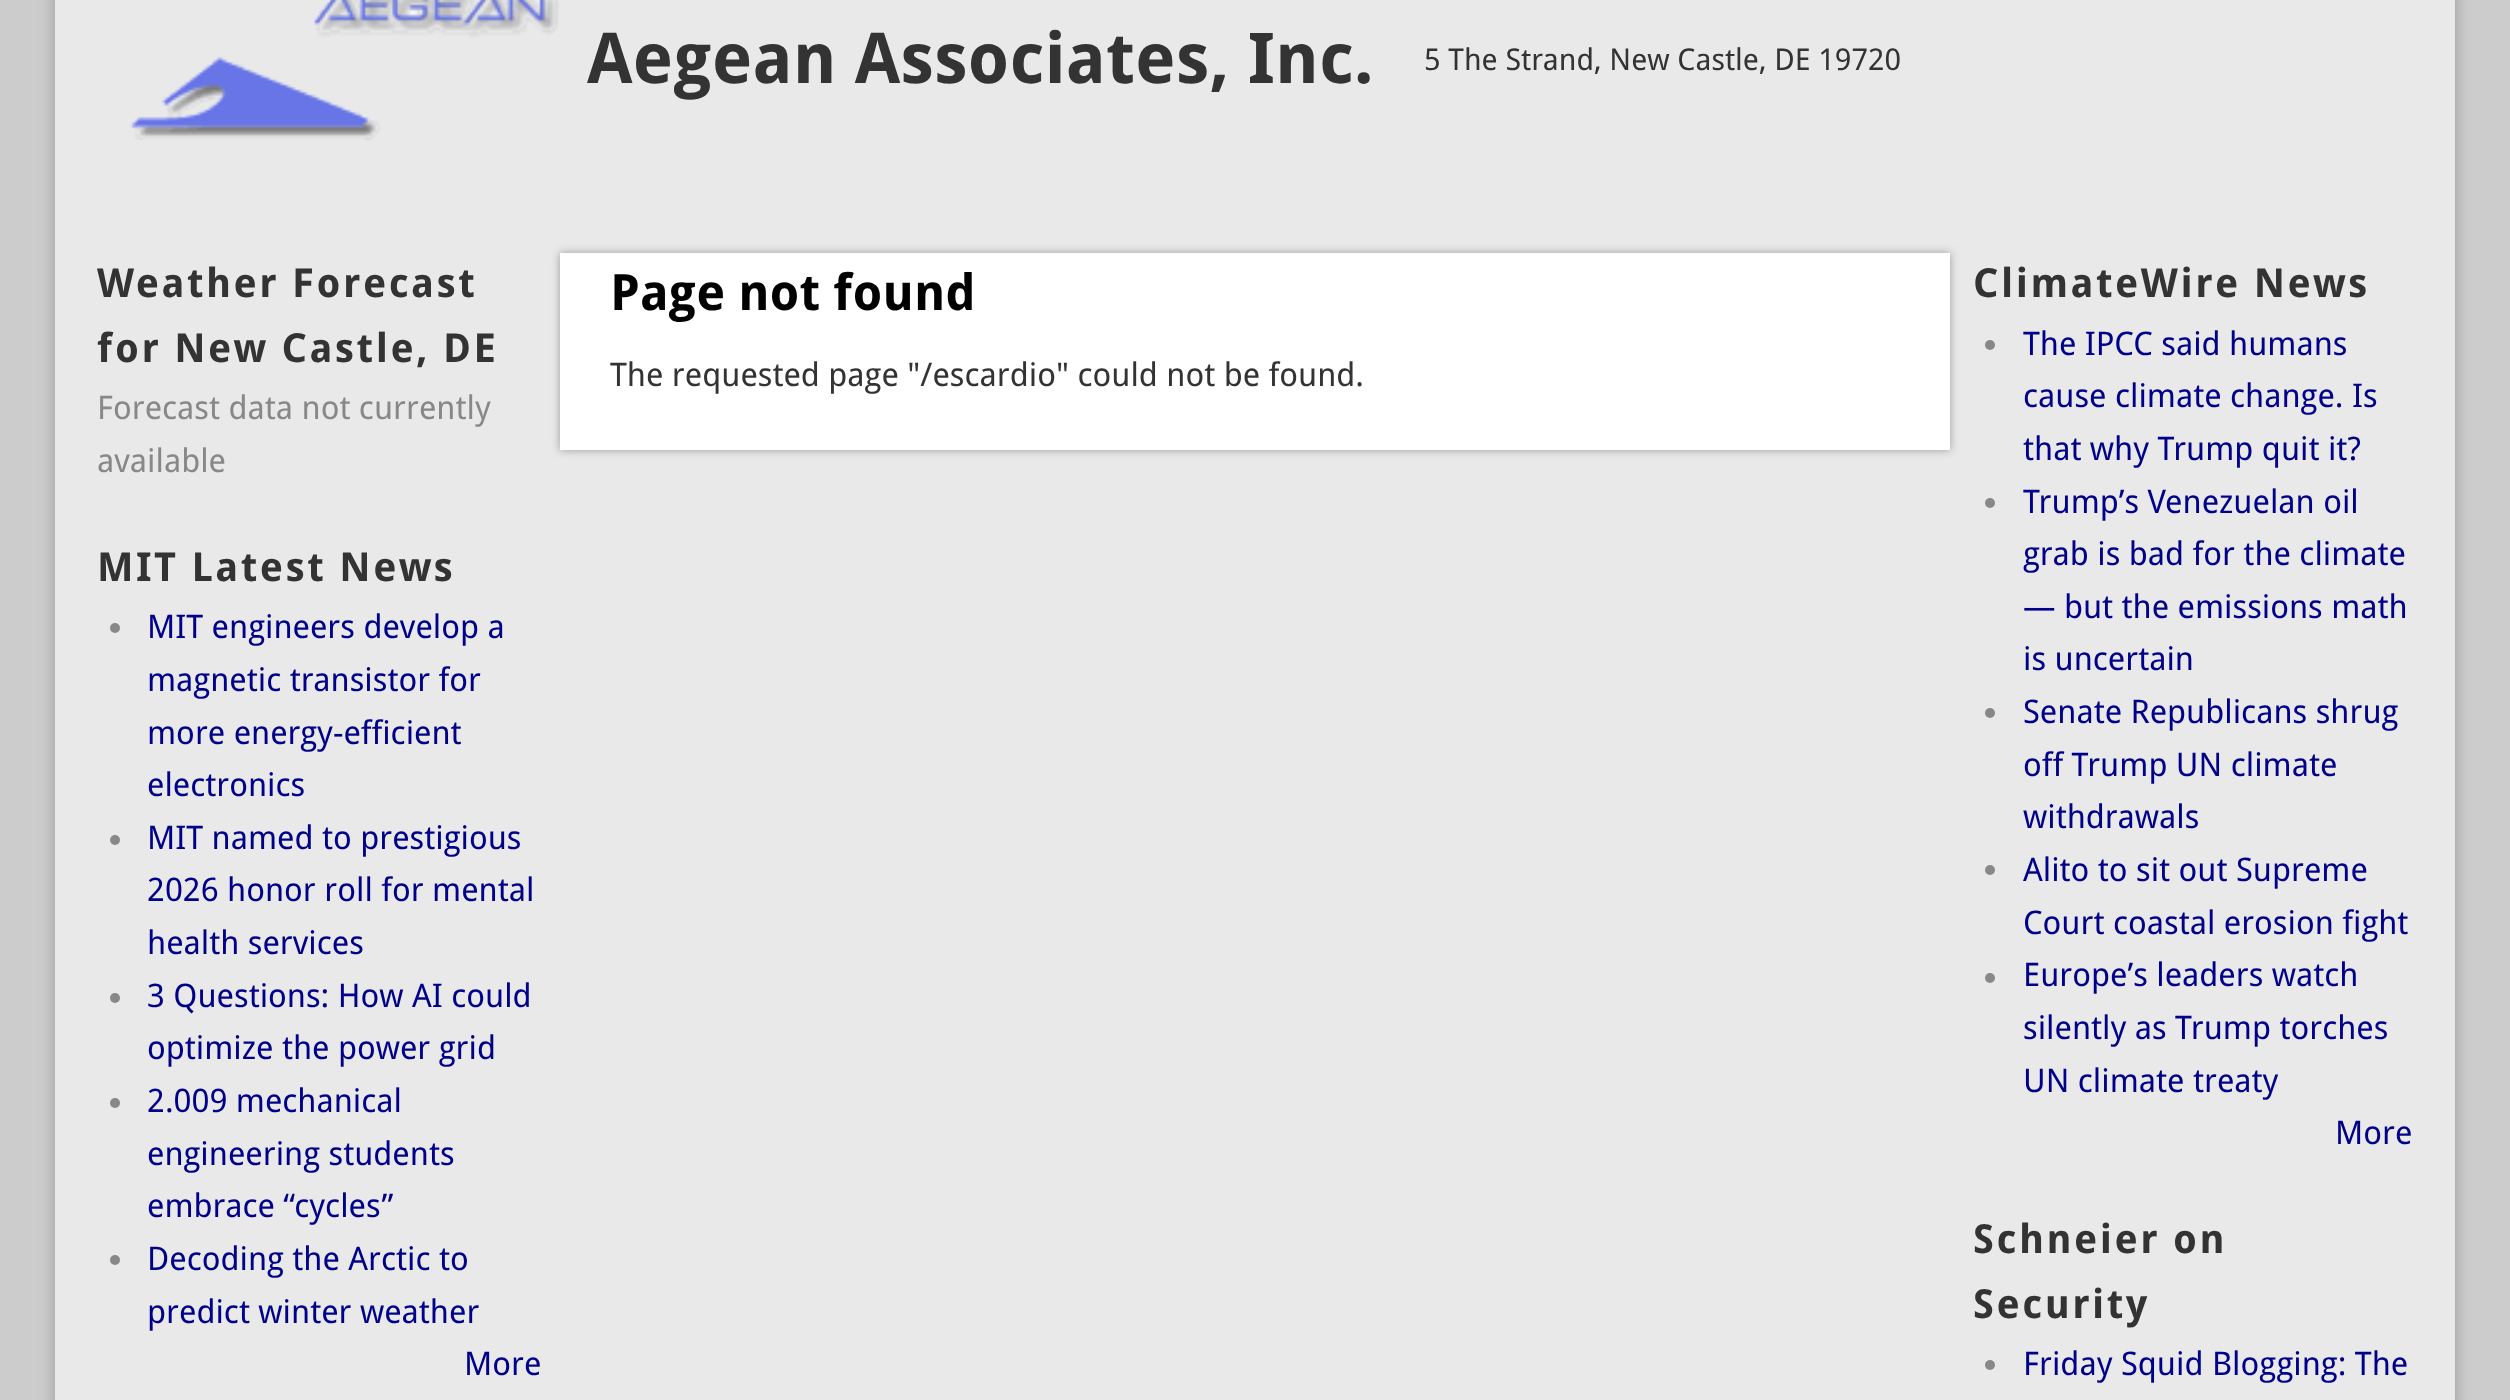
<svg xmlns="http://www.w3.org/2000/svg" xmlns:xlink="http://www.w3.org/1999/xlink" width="2510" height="1400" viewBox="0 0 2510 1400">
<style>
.cls-1{font:bold 70px Droid Sans;fill:#333333}
.cls-2{font:30px Droid Sans;fill:#333333}
.cls-3{font:bold 40px Droid Sans;letter-spacing:2.5px;fill:#333333}
.cls-4{font:32.5px Droid Sans;fill:#888888}
.cls-5{font:32.5px Droid Sans;fill:#00008b}
.cls-6{font:bold 50px Droid Sans;fill:#000000}
.cls-7{font:32.5px Droid Sans;fill:#333333}
</style>
<rect width="100%" height="100%" fill="#cccccc"/>
<rect fill="#999999" filter="blur(7.5px)" x="55" y="-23" width="2400" height="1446"/>
<rect fill="#e9e9e9" x="55" y="0" width="2400" height="1400"/>
<image xlink:href="image0.png" x="129" y="0" width="430" height="140"/>
<circle fill="#888888" cx="115" cy="628" r="5"/>
<circle fill="#888888" cx="115" cy="840" r="5"/>
<circle fill="#888888" cx="115" cy="998" r="5"/>
<circle fill="#888888" cx="115" cy="1103" r="5"/>
<circle fill="#888888" cx="115" cy="1260" r="5"/>
<rect fill="#999999" filter="blur(4px)" x="560" y="253" width="1390" height="197"/>
<rect fill="#ffffff" x="560" y="253" width="1390" height="197"/>
<circle fill="#888888" cx="1990" cy="345" r="5"/>
<circle fill="#888888" cx="1990" cy="503" r="5"/>
<circle fill="#888888" cx="1990" cy="713" r="5"/>
<circle fill="#888888" cx="1990" cy="870" r="5"/>
<circle fill="#888888" cx="1990" cy="978" r="5"/>
<circle fill="#888888" cx="1990" cy="1365" r="5"/>
<text class="cls-1" x="587" y="83">Aegean Associates, Inc.</text>
<text class="cls-2" x="1424" y="70">5 The Strand, New Castle, DE 19720</text>
<text class="cls-3"><tspan x="97" y="297">Weather Forecast</tspan><tspan x="97" y="362">for New Castle, DE</tspan></text>
<text class="cls-4"><tspan x="97" y="419">Forecast data not currently</tspan><tspan x="97" y="472">available</tspan></text>
<text class="cls-3" x="97" y="581">MIT Latest News</text>
<text class="cls-5"><tspan x="147" y="638">MIT engineers develop a</tspan><tspan x="147" y="691">magnetic transistor for</tspan><tspan x="147" y="744">more energy-efficient</tspan><tspan x="147" y="796">electronics</tspan><tspan x="147" y="849">MIT named to prestigious</tspan><tspan x="147" y="901">2026 honor roll for mental</tspan><tspan x="147" y="954">health services</tspan><tspan x="147" y="1007">3 Questions: How AI could</tspan><tspan x="147" y="1059">optimize the power grid</tspan><tspan x="147" y="1112">2.009 mechanical</tspan><tspan x="147" y="1165">engineering students</tspan><tspan x="147" y="1217">embrace “cycles”</tspan><tspan x="147" y="1270">Decoding the Arctic to</tspan><tspan x="147" y="1323">predict winter weather</tspan></text>
<text class="cls-5" x="464" y="1375">More</text>
<text class="cls-6" x="610" y="310">Page not found</text>
<text class="cls-7" x="610" y="386">The requested page "/escardio" could not be found.</text>
<text class="cls-3" x="1973" y="297">ClimateWire News</text>
<text class="cls-5"><tspan x="2023" y="355">The IPCC said humans</tspan><tspan x="2023" y="407">cause climate change. Is</tspan><tspan x="2023" y="460">that why Trump quit it?</tspan><tspan x="2023" y="513">Trump’s Venezuelan oil</tspan><tspan x="2023" y="565">grab is bad for the climate</tspan><tspan x="2023" y="618">— but the emissions math</tspan><tspan x="2023" y="670">is uncertain</tspan><tspan x="2023" y="723">Senate Republicans shrug</tspan><tspan x="2023" y="776">off Trump UN climate</tspan><tspan x="2023" y="828">withdrawals</tspan><tspan x="2023" y="881">Alito to sit out Supreme</tspan><tspan x="2023" y="934">Court coastal erosion fight</tspan><tspan x="2023" y="986">Europe’s leaders watch</tspan><tspan x="2023" y="1039">silently as Trump torches</tspan><tspan x="2023" y="1092">UN climate treaty</tspan></text>
<text class="cls-5" x="2335" y="1144">More</text>
<text class="cls-3"><tspan x="1973" y="1253">Schneier on</tspan><tspan x="1973" y="1318">Security</tspan></text>
<text class="cls-5" x="2023" y="1375">Friday Squid Blogging: The</text>
</svg>
